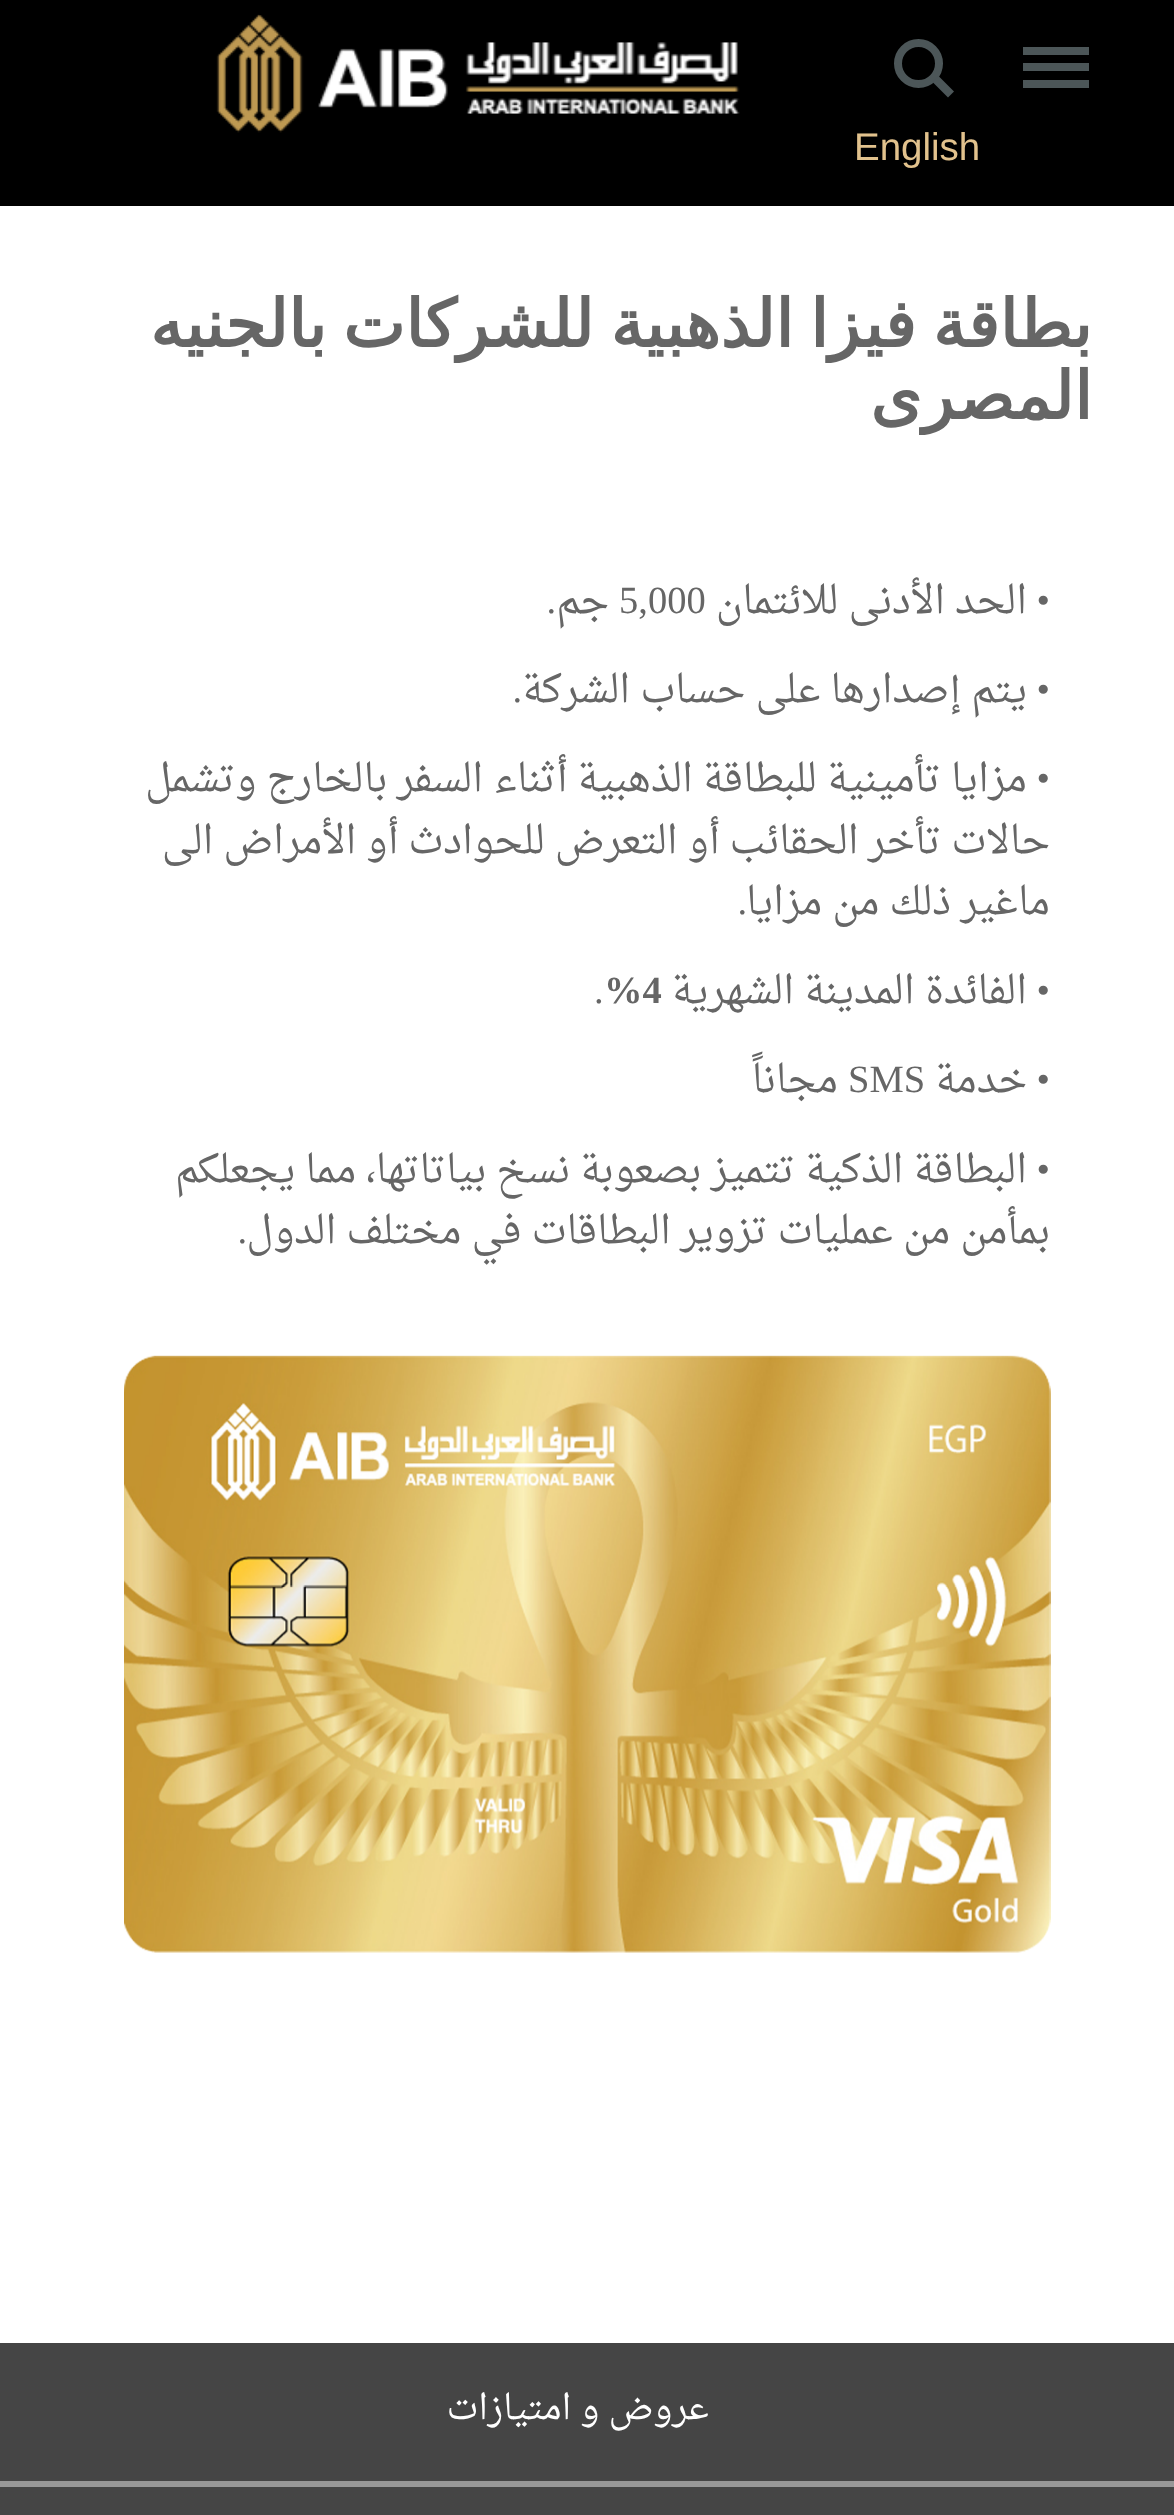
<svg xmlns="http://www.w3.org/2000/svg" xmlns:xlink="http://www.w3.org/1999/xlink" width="1174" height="2515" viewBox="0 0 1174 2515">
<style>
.cls-1{font:38.5px Liberation Sans;fill:#e2c28d}
.cls-2{font:bold 66px DejaVu Sans;direction:rtl;fill:#666666}
.cls-3{font:38.5px Liberation Serif;direction:rtl;fill:#666666}
.cls-4{font:38.5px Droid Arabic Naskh;direction:rtl;fill:#666666}
.cls-5{font:38.5px Liberation Serif;fill:#666666}
.cls-6{font:bold 38.5px Liberation Serif;fill:#666666}
.cls-7{font:34.75px Droid Arabic Naskh;direction:rtl;fill:#ffffff}
</style>
<rect width="100%" height="100%" fill="#ffffff"/>
<rect fill="#000000" x="0" y="0" width="1174" height="206"/>
<image xlink:href="image0.png" x="216" y="14" width="524" height="119"/>
<rect fill="#4c5658" x="1023" y="63" width="66" height="8"/>
<rect fill="#4c5658" x="1023" y="47" width="66" height="8"/>
<rect fill="#4c5658" x="1023" y="80" width="66" height="8"/>
<circle fill="none" stroke="#4c5658" stroke-width="8" cx="918.5" cy="63.5" r="20.5"/>
<path fill="#4c5658" d="M938.5 76L954 91.5L948 97.5L932.5 82Z"/>
<image xlink:href="image1.png" x="124" y="1355" width="927" height="598"/>
<rect fill="#454545" x="0" y="2343" width="1174" height="172"/>
<rect fill="#989898" x="0" y="2481" width="1174" height="6"/>
<text class="cls-1" x="854" y="160">English</text>
<text class="cls-2"><tspan x="1092" y="347" word-spacing="-4.5">بطاقة فيزا الذهبية للشركات بالجنيه</tspan><tspan x="1092" y="419">المصرى</tspan></text>
<text class="cls-3" x="1050" y="613">•</text>
<text class="cls-4" x="1027" y="613">الحد الأدنى للائتمان</text>
<text class="cls-5" x="619" y="613">5,000</text>
<text class="cls-4" x="609" y="613">جم</text>
<text class="cls-3" x="556" y="613">.</text>
<text class="cls-3" x="1050" y="702">•</text>
<text class="cls-4" x="1027" y="702">يتم إصدارها على حساب الشركة</text>
<text class="cls-3" x="522" y="702">.</text>
<text class="cls-3" x="1050" y="791">•</text>
<text class="cls-4" x="1027" y="791">مزايا تأمينية للبطاقة الذهبية أثناء السفر بالخارج وتشمل</text>
<text class="cls-4"><tspan x="1050" y="853">حالات تأخر الحقائب أو التعرض للحوادث أو الأمراض الى</tspan><tspan x="1050" y="914">ماغير ذلك من مزايا</tspan></text>
<text class="cls-3" x="747" y="914">.</text>
<text class="cls-3" x="1050" y="1003">•</text>
<text class="cls-4" x="1027" y="1003">الفائدة المدينة الشهرية</text>
<text class="cls-6" x="604" y="1003">%4</text>
<text class="cls-5" x="594" y="1003">.</text>
<text class="cls-3" x="1050" y="1092">•</text>
<text class="cls-4" x="1027" y="1092">خدمة</text>
<text class="cls-5" x="848" y="1092">SMS</text>
<text class="cls-4" x="838" y="1092">مجاناً</text>
<text class="cls-3" x="1050" y="1182">•</text>
<text class="cls-4" x="1027" y="1182">البطاقة الذكية تتميز بصعوبة نسخ بياتاتها، مما يجعلكم</text>
<text class="cls-4" x="1050" y="1243">بمأمن من عمليات تزوير البطاقات في مختلف الدول</text>
<text class="cls-3" x="247" y="1243">.</text>
<text class="cls-7" x="709" y="2419">عروض و امتيازات</text>
</svg>
